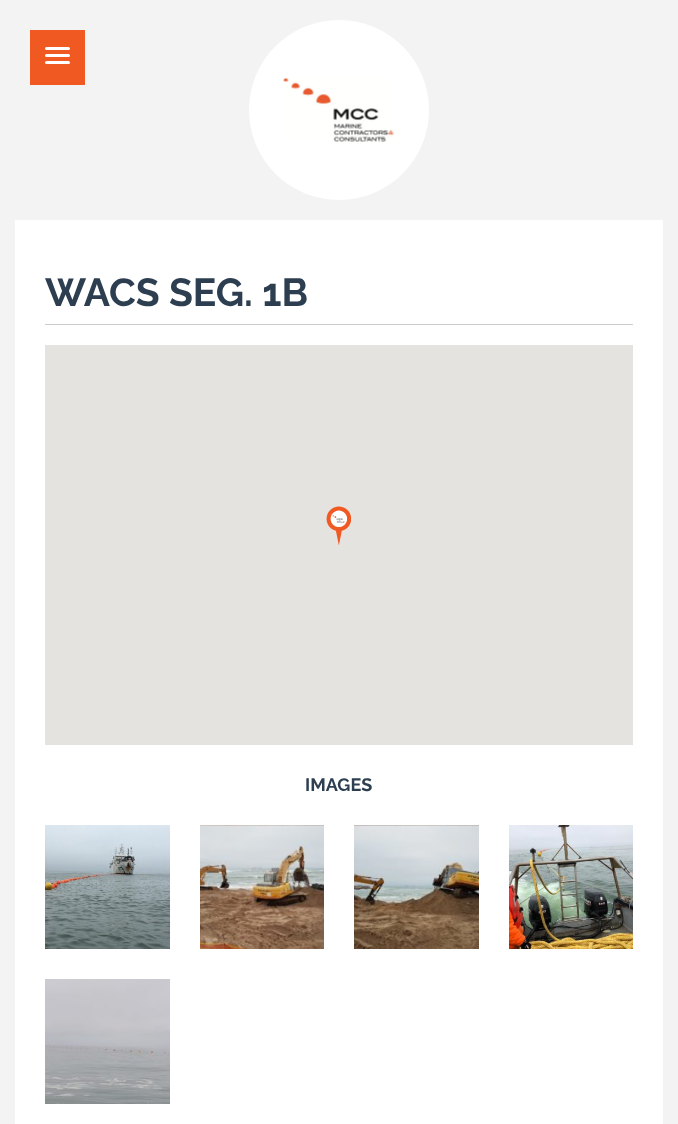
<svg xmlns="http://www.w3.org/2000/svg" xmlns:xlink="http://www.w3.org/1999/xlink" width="678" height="1124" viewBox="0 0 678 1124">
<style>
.cls-1{font:bold 39px Raleway;fill:#2c3e50}
.cls-2{font:bold 18px Raleway;fill:#2c3e50}
</style>
<rect width="100%" height="100%" fill="#f3f3f3"/>
<rect fill="#f15922" x="30" y="30" width="55" height="55"/>
<rect fill="#ffffff" x="45" y="47" width="25" height="3" rx="1.5"/>
<rect fill="#ffffff" x="45" y="54" width="25" height="3" rx="1.5"/>
<rect fill="#ffffff" x="45" y="61" width="25" height="3" rx="1.5"/>
<circle fill="#ffffff" cx="339" cy="110" r="90"/>
<image xlink:href="image0.png" x="283" y="77" width="111" height="65"/>
<rect fill="#ffffff" x="15" y="220" width="648" height="904"/>
<rect fill="#cccccc" x="45" y="324" width="588" height="1"/>
<rect fill="#e5e3df" x="45" y="345" width="588" height="400"/>
<image xlink:href="image1.png" x="326" y="506" width="25" height="39"/>
<image xlink:href="image2.png" x="45" y="825" width="125" height="124"/>
<image xlink:href="image3.png" x="200" y="825" width="124" height="124"/>
<image xlink:href="image4.png" x="354" y="825" width="125" height="124"/>
<image xlink:href="image5.png" x="509" y="825" width="124" height="124"/>
<image xlink:href="image6.png" x="45" y="979" width="125" height="125"/>
<text class="cls-1" x="45" y="306">WACS SEG. 1B</text>
<text class="cls-2" x="305" y="791">IMAGES</text>
</svg>
